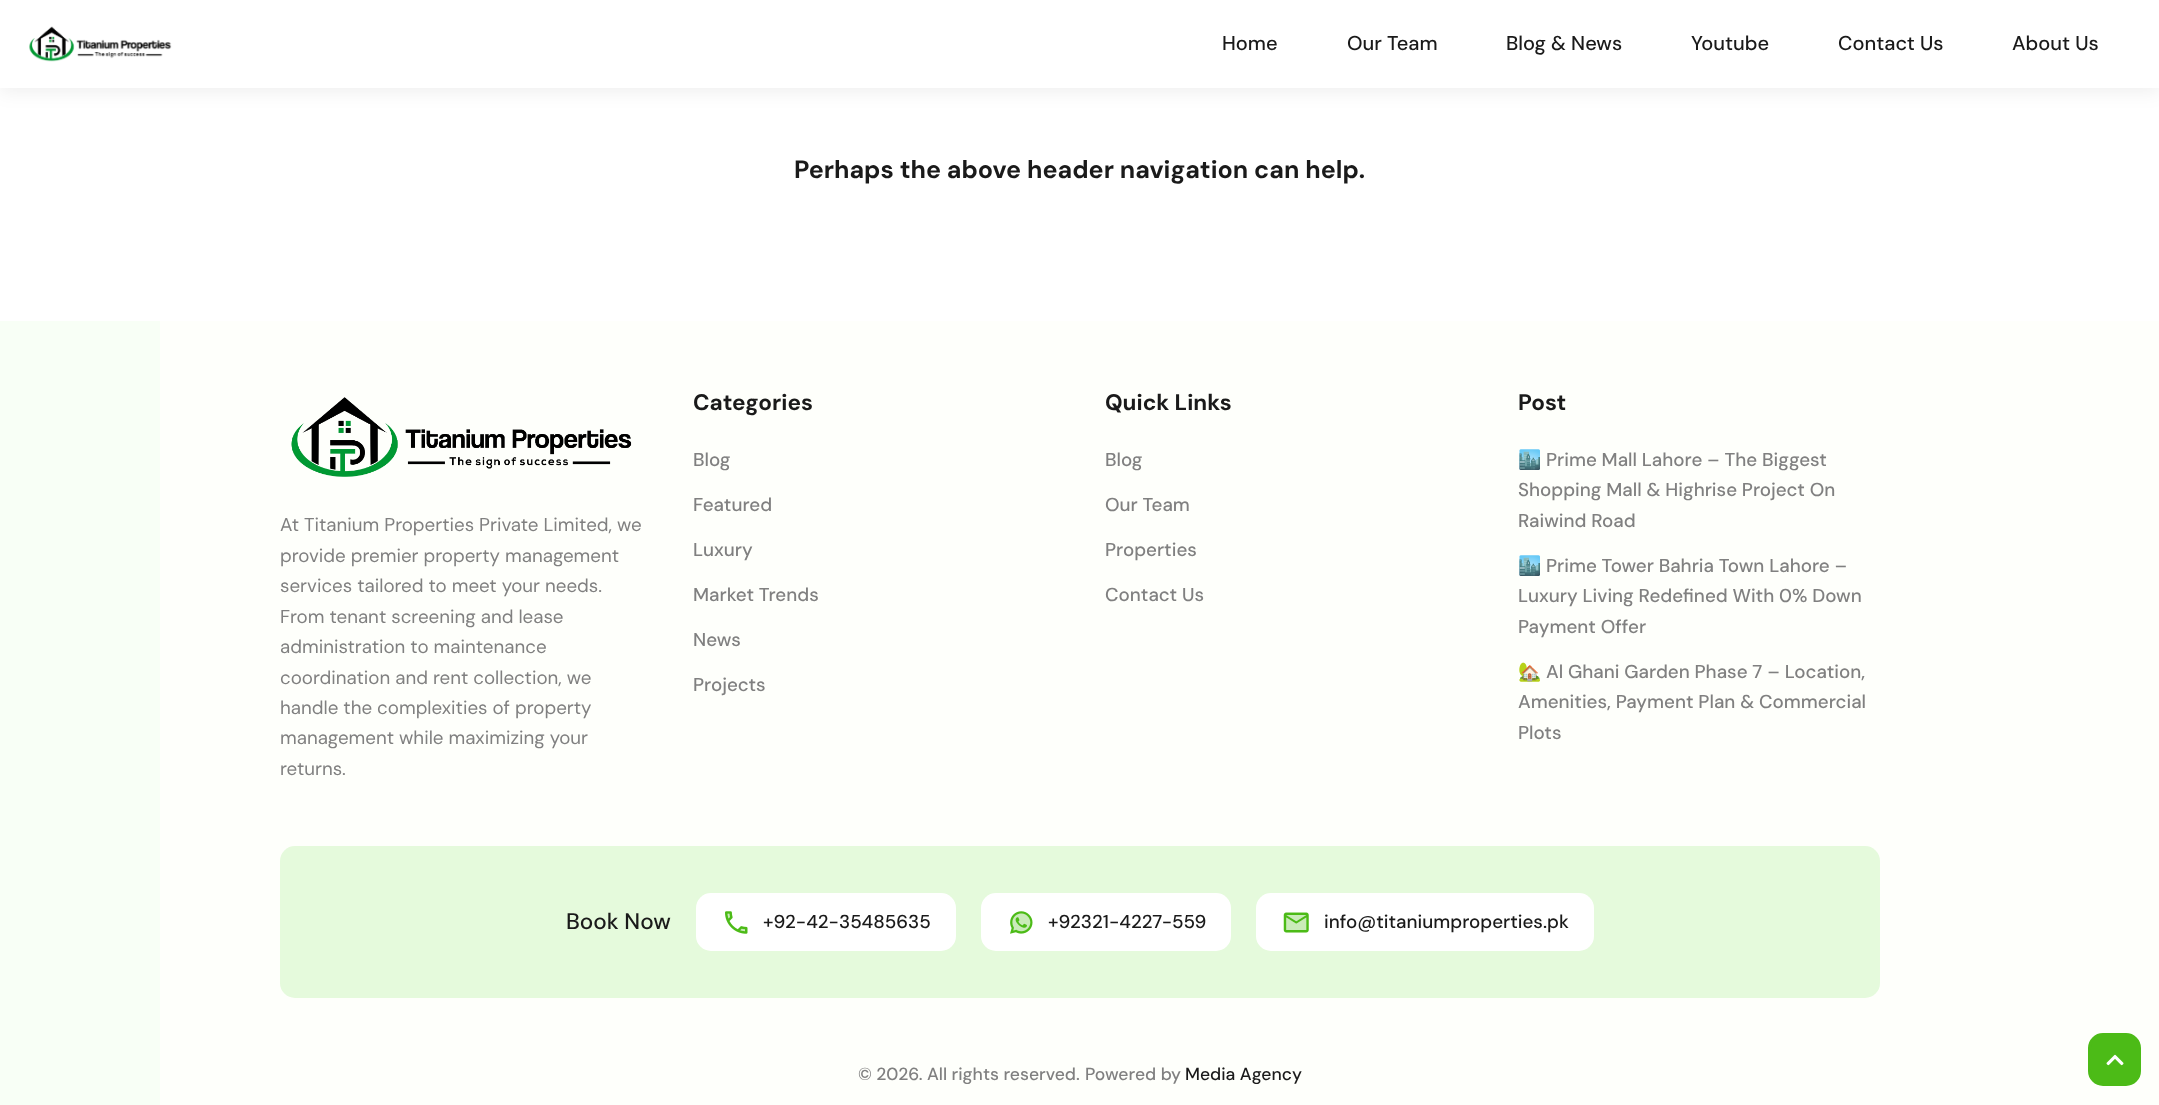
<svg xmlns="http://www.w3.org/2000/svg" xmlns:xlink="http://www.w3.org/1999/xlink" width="2159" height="1105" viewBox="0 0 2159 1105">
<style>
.cls-1{font:500 20px DM Sans;fill:#1a1a1a}
.cls-2{font:bold 25px DM Sans;fill:#1a1a1a}
.cls-3{font:18.75px DM Sans;fill:#808080}
.cls-4{font:bold 22.5px DM Sans;fill:#1a1a1a}
.cls-5{font:500 18.75px DM Sans;fill:#808080}
.cls-6{font:18.75px Noto Color Emoji;fill:#808080}
.cls-7{font:500 22.5px DM Sans;fill:#1a1a1a}
.cls-8{font:500 18.75px DM Sans;fill:#1a1a1a}
.cls-9{font:500 17.5px DM Sans;fill:#808080}
.cls-10{font:500 17.5px DM Sans;fill:#1a1a1a}
</style>
<rect width="100%" height="100%" fill="#ffffff"/>
<rect fill="#000000" fill-opacity="0.07" filter="blur(9.5px)" x="0" y="4" width="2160" height="87"/>
<rect fill="#ffffff" x="0" y="0" width="2159" height="88"/>
<image xlink:href="image0.png" x="29" y="26" width="143" height="36"/>
<rect fill="#f8fff6" x="0" y="321" width="160" height="784"/>
<rect fill="#fefffb" x="160" y="321" width="1999" height="784"/>
<image xlink:href="image1.png" x="291" y="397" width="341" height="80"/>
<rect fill="#e5fadc" x="280" y="846" width="1600" height="152" rx="15"/>
<rect fill="#ffffff" x="696" y="893" width="260" height="58" rx="15"/>
<image xlink:href="image2.png" x="725" y="911" width="23" height="23"/>
<rect fill="#ffffff" x="981" y="893" width="250" height="58" rx="15"/>
<image xlink:href="image3.png" x="1010" y="911" width="23" height="23"/>
<rect fill="#ffffff" x="1256" y="893" width="338" height="58" rx="15"/>
<image xlink:href="image4.png" x="1283" y="912" width="26" height="21"/>
<rect fill="#4cbb17" stroke="#4cbb17" stroke-width="3" x="2089.5" y="1034.5" width="50" height="50" rx="13.5"/>
<image xlink:href="image5.png" x="2106" y="1054" width="18" height="12"/>
<text class="cls-1" x="1222" y="50">Home</text>
<text class="cls-1" x="1347" y="50">Our Team</text>
<text class="cls-1" x="1506" y="50">Blog &amp; News</text>
<text class="cls-1" x="1691" y="50">Youtube</text>
<text class="cls-1" x="1838" y="50">Contact Us</text>
<text class="cls-1" x="2012" y="50">About Us</text>
<text class="cls-2" x="794" y="178">Perhaps the above header navigation can help.</text>
<text class="cls-3"><tspan x="280" y="531">At Titanium Properties Private Limited, we</tspan><tspan x="280" y="562">provide premier property management</tspan><tspan x="280" y="592">services tailored to meet your needs.</tspan><tspan x="280" y="623">From tenant screening and lease</tspan><tspan x="280" y="653">administration to maintenance</tspan><tspan x="280" y="684">coordination and rent collection, we</tspan><tspan x="280" y="714">handle the complexities of property</tspan><tspan x="280" y="744">management while maximizing your</tspan><tspan x="280" y="775">returns.</tspan></text>
<text class="cls-4" x="693" y="410">Categories</text>
<text class="cls-5" x="693" y="466">Blog</text>
<text class="cls-5" x="693" y="511">Featured</text>
<text class="cls-5" x="693" y="556">Luxury</text>
<text class="cls-5" x="693" y="601">Market Trends</text>
<text class="cls-5" x="693" y="646">News</text>
<text class="cls-5" x="693" y="691">Projects</text>
<text class="cls-4" x="1105" y="410">Quick Links</text>
<text class="cls-5" x="1105" y="466">Blog</text>
<text class="cls-5" x="1105" y="511">Our Team</text>
<text class="cls-5" x="1105" y="556">Properties</text>
<text class="cls-5" x="1105" y="601">Contact Us</text>
<text class="cls-4" x="1518" y="410">Post</text>
<text class="cls-6" x="1518" y="466">🏙️</text>
<text class="cls-5" x="1546" y="466">Prime Mall Lahore – The Biggest</text>
<text class="cls-5"><tspan x="1518" y="496">Shopping Mall &amp; Highrise Project On</tspan><tspan x="1518" y="527">Raiwind Road</tspan></text>
<text class="cls-6" x="1518" y="572">🏙️</text>
<text class="cls-5" x="1546" y="572">Prime Tower Bahria Town Lahore –</text>
<text class="cls-5"><tspan x="1518" y="602">Luxury Living Redefined With 0% Down</tspan><tspan x="1518" y="633">Payment Offer</tspan></text>
<text class="cls-6" x="1518" y="678">🏡</text>
<text class="cls-5" x="1546" y="678">Al Ghani Garden Phase 7 – Location,</text>
<text class="cls-5"><tspan x="1518" y="708">Amenities, Payment Plan &amp; Commercial</tspan><tspan x="1518" y="739">Plots</tspan></text>
<text class="cls-7" x="566" y="929">Book Now</text>
<text class="cls-8" x="763" y="928">+92-42-35485635</text>
<text class="cls-8" x="1048" y="928">+92321-4227-559</text>
<text class="cls-8" x="1324" y="928">info@titaniumproperties.pk</text>
<text class="cls-9" x="858" y="1080">© 2026. All rights reserved.</text>
<text class="cls-9" x="1085" y="1080">Powered by</text>
<text class="cls-10" x="1185" y="1080">Media Agency</text>
</svg>
